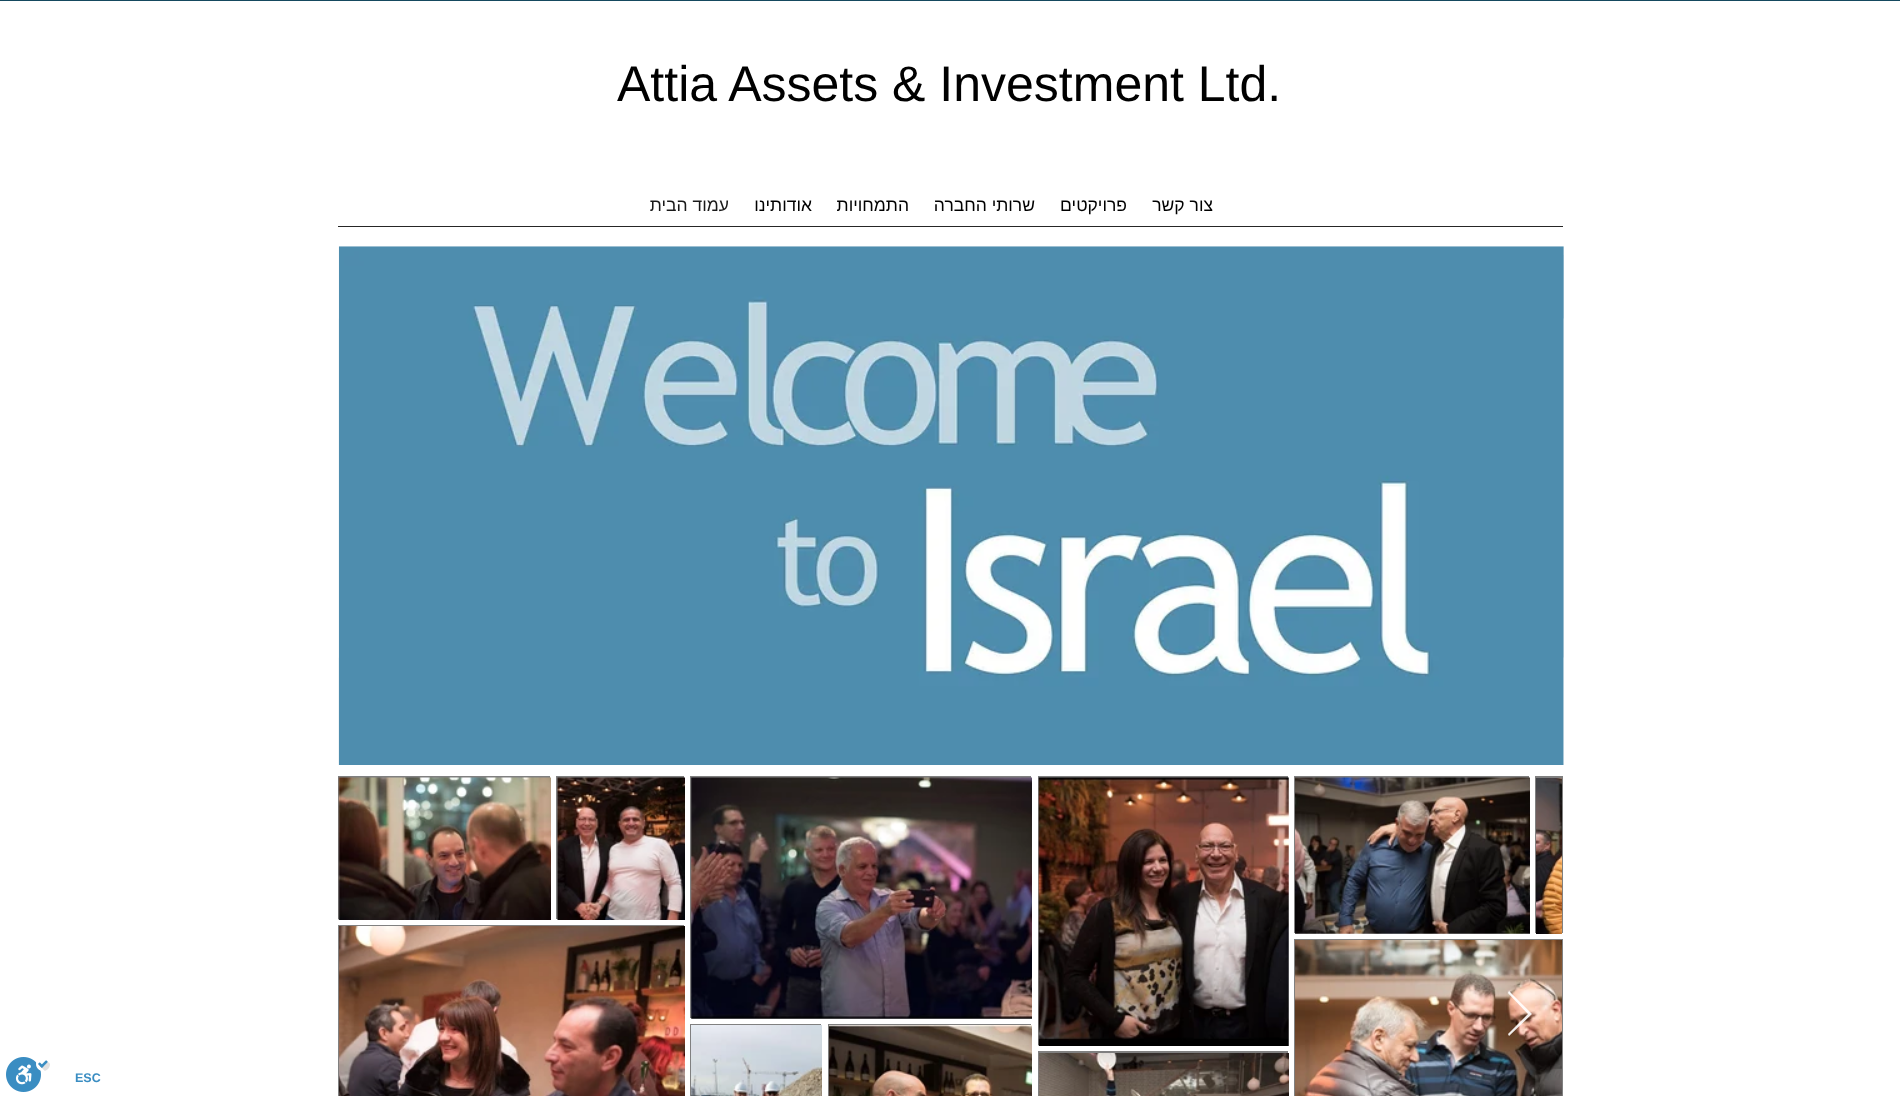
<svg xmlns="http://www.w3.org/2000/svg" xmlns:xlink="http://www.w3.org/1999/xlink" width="1900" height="1096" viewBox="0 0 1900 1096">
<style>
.cls-1{font:50px Liberation Sans;fill:#000000}
.cls-2{font:17.5px Liberation Sans;direction:rtl;fill:#000000}
.cls-3{font:17.5px Liberation Sans;direction:rtl;fill:#191919}
.cls-4{font:bold 12.5px Liberation Sans;fill:#3a8dc2}
</style>
<rect width="100%" height="100%" fill="#ffffff"/>
<rect fill="#262626" x="338" y="226" width="1225" height="1"/>
<image xlink:href="image0.png" x="338" y="246" width="1226" height="519"/>
<rect fill="#808080" x="1535" y="776" width="28" height="157"/>
<image xlink:href="image1.png" x="1536" y="778" width="26" height="156"/>
<rect fill="#808080" x="1294" y="776" width="235" height="157"/>
<image xlink:href="image2.png" x="1295" y="777" width="235" height="157"/>
<rect fill="#808080" x="1294" y="939" width="269" height="157"/>
<image xlink:href="image3.png" x="1295" y="940" width="267" height="156"/>
<rect fill="#808080" x="1038" y="776" width="250" height="269"/>
<image xlink:href="image4.png" x="1038" y="777" width="251" height="269"/>
<rect fill="#808080" x="1038" y="1051" width="250" height="45"/>
<image xlink:href="image5.png" x="1039" y="1053" width="250" height="43"/>
<rect fill="#808080" x="690" y="776" width="341" height="242"/>
<image xlink:href="image6.png" x="691" y="777" width="341" height="242"/>
<rect fill="#808080" x="828" y="1024" width="203" height="72"/>
<image xlink:href="image7.png" x="829" y="1025" width="203" height="71"/>
<rect fill="#808080" x="690" y="1024" width="131" height="72"/>
<image xlink:href="image8.png" x="691" y="1025" width="131" height="71"/>
<rect fill="#808080" x="556" y="776" width="128" height="143"/>
<image xlink:href="image9.png" x="557" y="777" width="128" height="143"/>
<rect fill="#808080" x="338" y="776" width="212" height="143"/>
<image xlink:href="image10.png" x="338" y="777" width="213" height="143"/>
<rect fill="#808080" x="338" y="925" width="346" height="171"/>
<image xlink:href="image11.png" x="339" y="926" width="346" height="170"/>
<path fill="#ffffff" fill-opacity="0.9" d="M1508 993L1509 991L1532 1014L1509 1036L1508 1034L1528 1014Z"/>
<rect fill="#15495f" x="0" y="0" width="1900" height="1"/>
<image xlink:href="image12.png" x="6" y="1057" width="44" height="35"/>
<text class="cls-1" x="617" y="101">Attia Assets &amp; Investment Ltd.</text>
<text class="cls-2" x="1213" y="211">צור קשר</text>
<text class="cls-2" x="1127" y="211">פרויקטים</text>
<text class="cls-2" x="1035" y="211">שרותי החברה</text>
<text class="cls-2" x="909" y="211">התמחויות</text>
<text class="cls-2" x="812" y="211">אודותינו</text>
<text class="cls-3" x="729" y="211">עמוד הבית</text>
<text class="cls-4" x="75" y="1082">ESC</text>
</svg>
